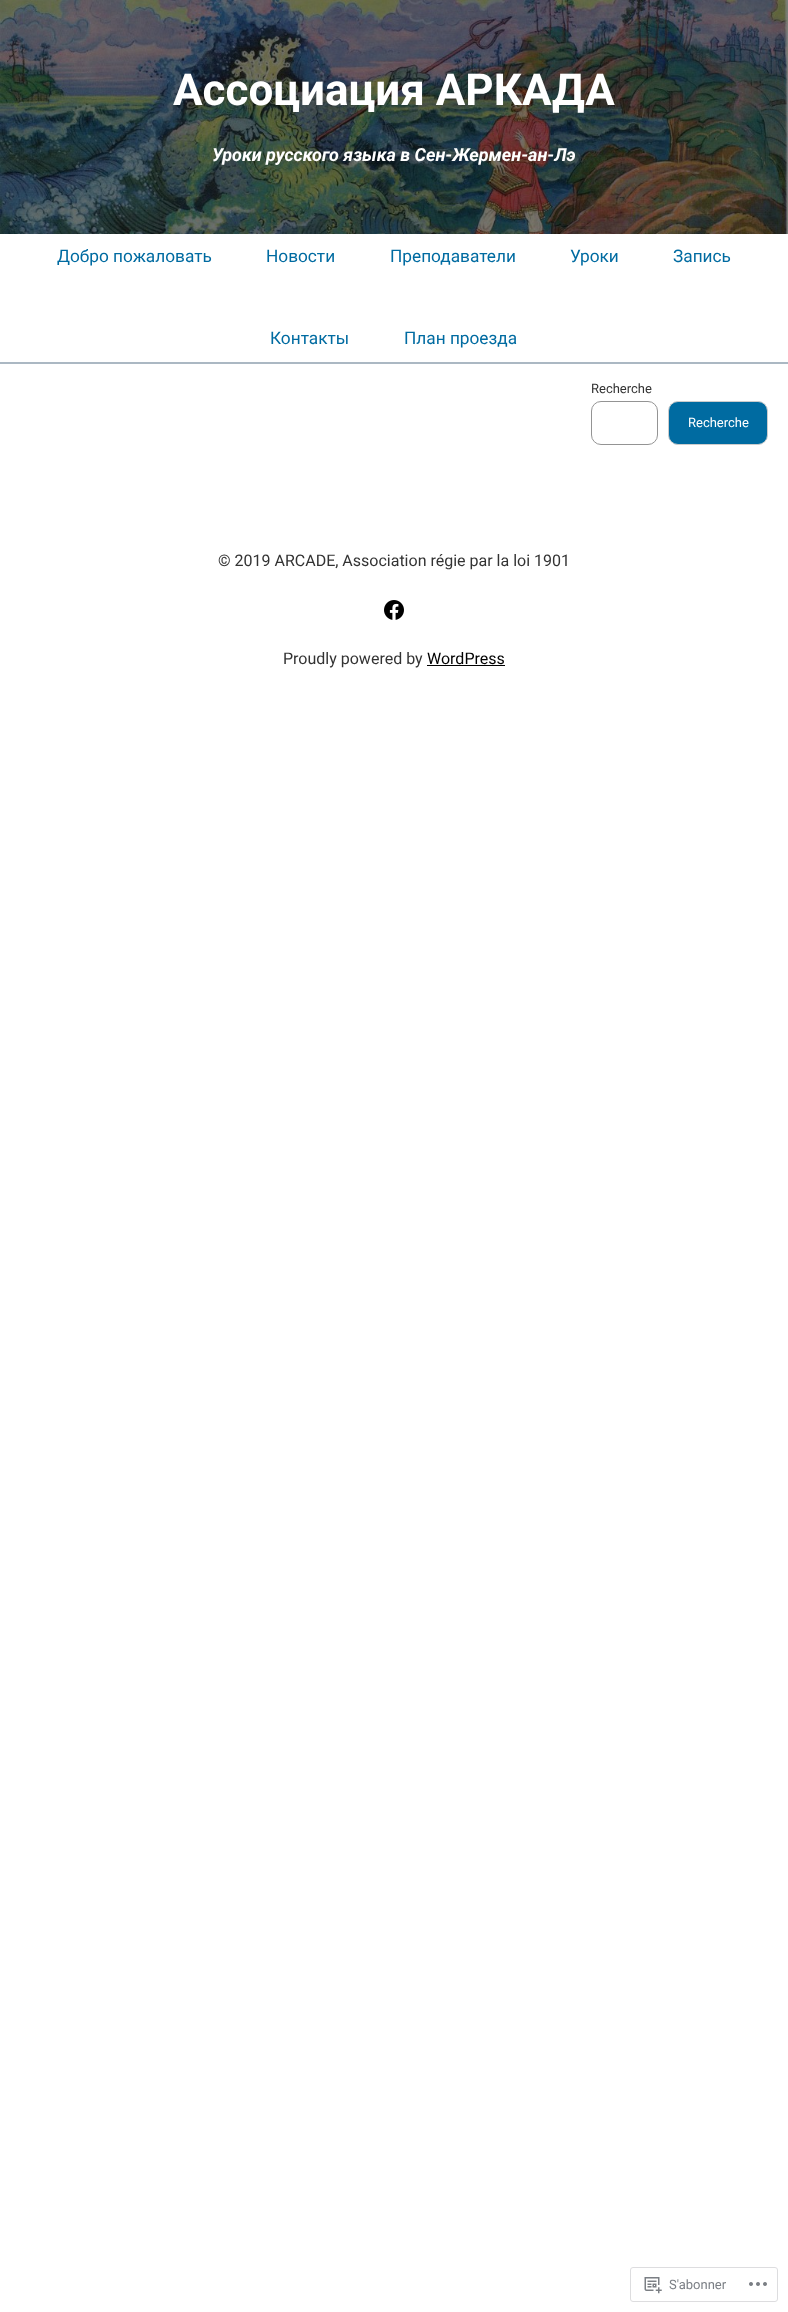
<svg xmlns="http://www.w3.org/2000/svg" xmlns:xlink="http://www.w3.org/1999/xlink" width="788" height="2312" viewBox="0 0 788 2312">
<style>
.cls-1{font:bold 44px Roboto;fill:#ffffff}
.cls-2{font:italic bold 18px Roboto;fill:#ffffff}
.cls-3{font:17.25px Roboto;fill:#006ba1}
.cls-4{font:13px Roboto;fill:#333333}
.cls-5{font:13px Roboto;fill:#ffffff}
.cls-6{font:16px Roboto;fill:#333333}
.cls-7{font:16px Roboto;fill:#000000}
.cls-8{font:13px Roboto;fill:#7b7f85}
</style>
<rect width="100%" height="100%" fill="#ffffff"/>
<image xlink:href="image0.png" x="0" y="0" width="788" height="234"/>
<rect fill="#abb8c3" x="0" y="362" width="788" height="2"/>
<rect fill="none" stroke="#949494" x="591.5" y="401.5" width="66" height="43" rx="9.5"/>
<rect fill="#006ba1" stroke="#cccccc" x="668.5" y="401.5" width="99" height="43" rx="9.5"/>
<image xlink:href="image1.png" x="384" y="600" width="20" height="20"/>
<rect fill="#000000" x="427" y="665" width="78" height="1"/>
<rect fill="none" stroke="#dddddf" x="630.5" y="2267.5" width="147" height="34" rx="2.5"/>
<image xlink:href="image2.png" x="644" y="2277" width="18" height="17"/>
<image xlink:href="image3.png" x="749" y="2282" width="18" height="4"/>
<text class="cls-1" x="173" y="105">Ассоциация АРКАДА</text>
<text class="cls-2" x="212" y="161">Уроки русского языка в Сен-Жермен-ан-Лэ</text>
<text class="cls-3" x="57" y="262">Добро пожаловать</text>
<text class="cls-3" x="266" y="262">Новости</text>
<text class="cls-3" x="390" y="262">Преподаватели</text>
<text class="cls-3" x="570" y="262">Уроки</text>
<text class="cls-3" x="673" y="262">Запись</text>
<text class="cls-3" x="270" y="344">Контакты</text>
<text class="cls-3" x="404" y="344">План проезда</text>
<text class="cls-4" x="591" y="393">Recherche</text>
<text class="cls-5" x="688" y="427">Recherche</text>
<text class="cls-6" x="218" y="566">© 2019 ARCADE, Association régie par la loi 1901</text>
<text class="cls-6" x="283" y="664">Proudly powered by</text>
<text class="cls-7" x="427" y="664">WordPress</text>
<text class="cls-8" x="669" y="2289">S'abonner</text>
</svg>
